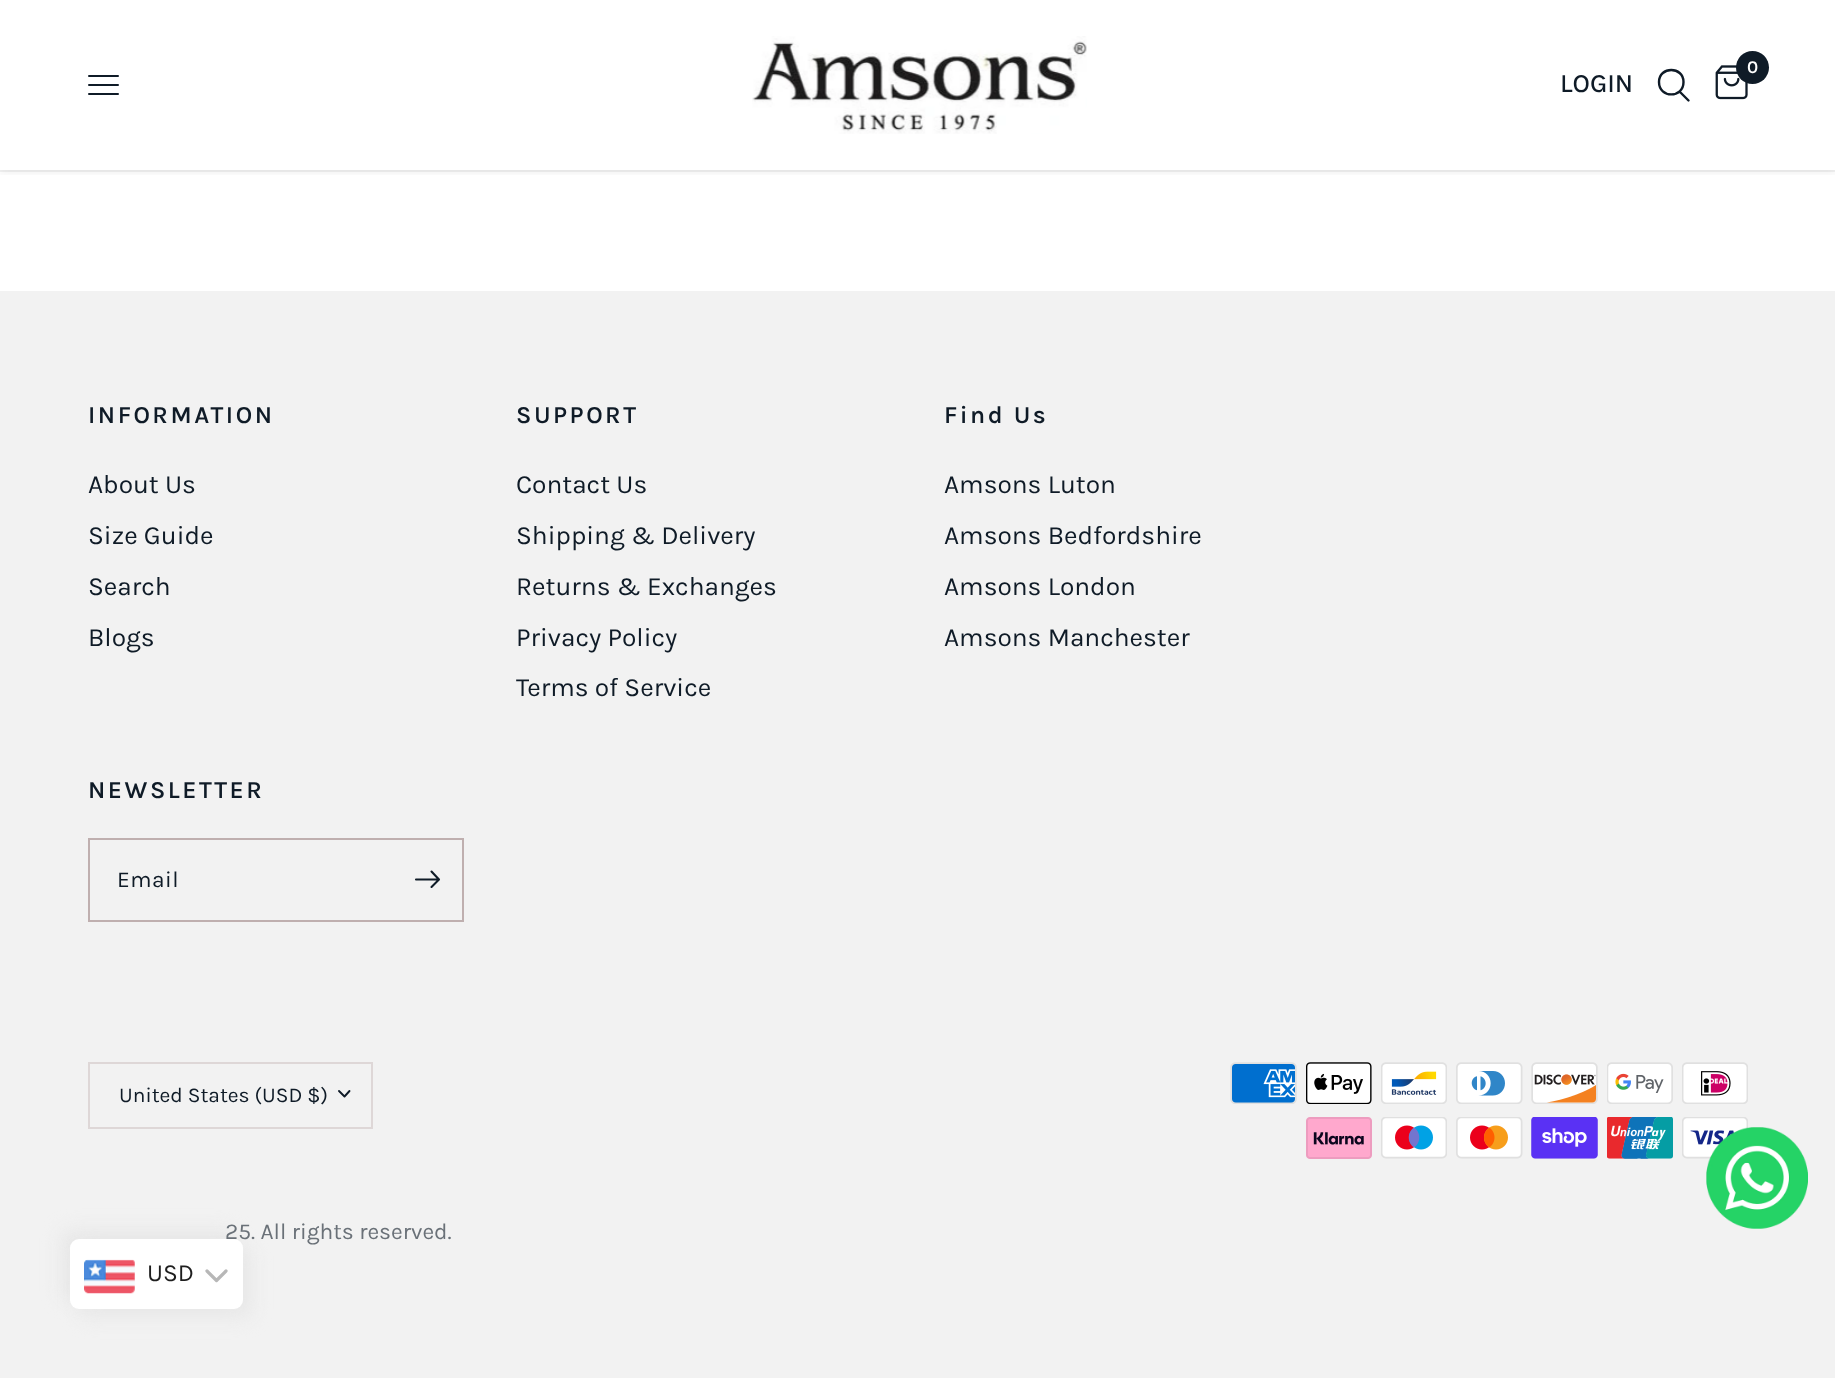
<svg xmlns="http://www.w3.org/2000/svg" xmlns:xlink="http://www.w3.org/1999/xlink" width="1835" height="1378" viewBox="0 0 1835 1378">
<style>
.cls-1{font:500 26.25px Karla;fill:#0f1b27}
.cls-2{font:600 18px Karla;fill:#ffffff}
.cls-3{font:600 24.5px Karla;letter-spacing:2.5px;fill:#0f1b27}
.cls-4{font:26.25px Karla;fill:#0f1b27}
.cls-5{font:22.75px Karla;letter-spacing:0.5px;fill:#0f1b27}
.cls-6{font:21px Karla;fill:#0f1b27}
.cls-7{font:22.75px Karla;fill:#6a7178}
.cls-8{font:24.5px Karla;fill:#1e1e1e}
</style>
<defs>
<clipPath id="clip1"><rect x="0" y="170" width="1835" height="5"/></clipPath>
</defs>
<rect width="100%" height="100%" fill="#ffffff"/>
<rect fill="#f2f2f2" x="0" y="170" width="1835" height="2"/>
<g clip-path="url(#clip1)">
<rect fill="#000000" fill-opacity="0.06" filter="blur(4.5px)" x="0" y="4" width="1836" height="169"/>
</g>
<rect fill="#0f1b27" x="88" y="75" width="31" height="2" rx="1"/>
<rect fill="#0f1b27" x="88" y="84" width="31" height="2" rx="1"/>
<rect fill="#0f1b27" x="88" y="93" width="31" height="2" rx="1"/>
<image xlink:href="image0.png" x="752" y="36" width="335" height="98"/>
<path fill="none" stroke="#0f1b27" stroke-width="2.4" stroke-linecap="round" stroke-linejoin="round" d="M1680 92L1688.5 100.5M1683.5 82C1683.5 98.5 1659 98.5 1659 82C1659 66 1683.5 66 1683.5 82Z"/>
<image xlink:href="image1.png" x="1715" y="65" width="33" height="35"/>
<circle fill="#0f1b27" cx="1752.5" cy="67.5" r="16.5"/>
<rect fill="#f2f2f2" x="0" y="291" width="1835" height="1087"/>
<rect fill="none" stroke="#bfafaf" stroke-width="2" x="89" y="839" width="374" height="82"/>
<path fill="none" stroke="#0f1b27" stroke-width="2.1" stroke-linecap="round" stroke-linejoin="round" d="M416 879.5H437M431.5 871.5L439 879.5L431.5 887"/>
<rect fill="none" stroke="#ded7d7" stroke-width="2" x="89" y="1063" width="283" height="65"/>
<path fill="none" stroke="#0f1b27" stroke-width="1.9" stroke-linecap="round" stroke-linejoin="round" d="M349.5 1091L344.5 1096.5L339 1091"/>
<image xlink:href="image2.png" x="1230" y="1062" width="67" height="42"/>
<image xlink:href="image3.png" x="1306" y="1062" width="66" height="42"/>
<image xlink:href="image4.png" x="1381" y="1062" width="66" height="42"/>
<image xlink:href="image5.png" x="1456" y="1062" width="67" height="42"/>
<image xlink:href="image6.png" x="1531" y="1062" width="67" height="42"/>
<image xlink:href="image7.png" x="1607" y="1062" width="66" height="42"/>
<image xlink:href="image8.png" x="1682" y="1062" width="66" height="42"/>
<image xlink:href="image9.png" x="1306" y="1117" width="66" height="42"/>
<image xlink:href="image10.png" x="1381" y="1117" width="66" height="42"/>
<image xlink:href="image11.png" x="1456" y="1117" width="67" height="42"/>
<image xlink:href="image12.png" x="1531" y="1117" width="67" height="42"/>
<image xlink:href="image13.png" x="1607" y="1117" width="66" height="42"/>
<image xlink:href="image14.png" x="1682" y="1117" width="66" height="42"/>
<image xlink:href="image15.png" x="1706" y="1127" width="102" height="102"/>
<rect fill="#e8e8e8" filter="blur(9px)" x="61" y="1230" width="174" height="70" rx="9"/>
<rect fill="#e8e8e8" filter="blur(9px)" x="79" y="1248" width="173" height="70" rx="9"/>
<text class="cls-1" x="1560" y="92">LOGIN</text>
<text class="cls-2" x="1747" y="73">0</text>
<text class="cls-3" x="88" y="423">INFORMATION</text>
<text class="cls-4"><tspan x="88" y="493">About Us</tspan><tspan x="88" y="544">Size Guide</tspan><tspan x="88" y="595">Search</tspan><tspan x="88" y="646">Blogs</tspan></text>
<text class="cls-3" x="516" y="423">SUPPORT</text>
<text class="cls-4"><tspan x="516" y="493">Contact Us</tspan><tspan x="516" y="544">Shipping &amp; Delivery</tspan><tspan x="516" y="595">Returns &amp; Exchanges</tspan><tspan x="516" y="646">Privacy Policy</tspan><tspan x="516" y="696">Terms of Service</tspan></text>
<text class="cls-3" x="944" y="423">Find Us</text>
<text class="cls-4"><tspan x="944" y="493">Amsons Luton</tspan><tspan x="944" y="544">Amsons Bedfordshire</tspan><tspan x="944" y="595">Amsons London</tspan><tspan x="944" y="646">Amsons Manchester</tspan></text>
<text class="cls-3" x="88" y="798">NEWSLETTER</text>
<text class="cls-5" x="117" y="887">Email</text>
<text class="cls-6" x="119" y="1102">United States (USD $)</text>
<text class="cls-7" x="225" y="1239">25. All rights reserved.</text>
<rect fill="#ffffff" x="70" y="1239" width="173" height="70" rx="9"/>
<image xlink:href="image16.png" x="84" y="1259" width="51" height="35"/>
<text class="cls-8" x="147" y="1281">USD</text>
<path fill="none" stroke="#b7b7b7" stroke-width="3.2" stroke-linecap="round" stroke-linejoin="round" d="M207 1271L216.5 1280.5L226 1271"/>
</svg>
